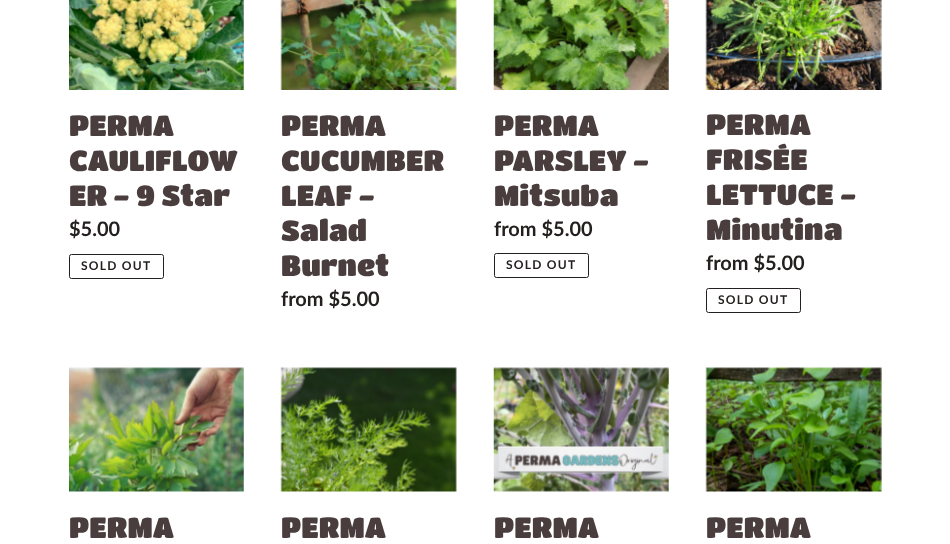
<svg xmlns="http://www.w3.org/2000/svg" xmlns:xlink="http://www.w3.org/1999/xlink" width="950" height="544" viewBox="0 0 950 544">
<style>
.cls-1{font:28.75px Titan One;fill:#493e3d}
.cls-2{font:bold 20px Lato;fill:#24201f}
.cls-3{font:bold 12px Lato;letter-spacing:1.25px;fill:#24201f}
</style>
<rect width="100%" height="100%" fill="#ffffff"/>
<image xlink:href="image0.png" x="69" y="0" width="175" height="90"/>
<rect fill="none" stroke="#24201f" x="69.5" y="254.5" width="94" height="24" rx="2"/>
<image xlink:href="image1.png" x="280" y="0" width="177" height="90"/>
<image xlink:href="image2.png" x="493" y="0" width="176" height="90"/>
<rect fill="none" stroke="#24201f" x="494.5" y="253.5" width="94" height="24" rx="2"/>
<image xlink:href="image3.png" x="705" y="0" width="177" height="90"/>
<rect fill="none" stroke="#24201f" x="706.5" y="288.5" width="94" height="24" rx="2"/>
<image xlink:href="image4.png" x="69" y="367" width="175" height="125"/>
<image xlink:href="image5.png" x="280" y="367" width="177" height="125"/>
<image xlink:href="image6.png" x="493" y="367" width="176" height="125"/>
<image xlink:href="image7.png" x="705" y="367" width="177" height="125"/>
<text class="cls-1"><tspan x="69" y="136">PERMA</tspan><tspan x="69" y="171">CAULIFLOW</tspan><tspan x="69" y="206">ER - 9 Star</tspan></text>
<text class="cls-2" x="69" y="236">$5.00</text>
<text class="cls-3" x="81" y="270">SOLD OUT</text>
<text class="cls-1"><tspan x="281" y="136">PERMA</tspan><tspan x="281" y="171">CUCUMBER</tspan><tspan x="281" y="206">LEAF -</tspan><tspan x="281" y="241">Salad</tspan><tspan x="281" y="276">Burnet</tspan></text>
<text class="cls-2" x="281" y="306">from $5.00</text>
<text class="cls-1"><tspan x="494" y="136">PERMA</tspan><tspan x="494" y="171">PARSLEY -</tspan><tspan x="494" y="206">Mitsuba</tspan></text>
<text class="cls-2" x="494" y="236">from $5.00</text>
<text class="cls-3" x="506" y="269">SOLD OUT</text>
<text class="cls-1"><tspan x="706" y="135">PERMA</tspan><tspan x="706" y="170">FRISÉE</tspan><tspan x="706" y="205">LETTUCE -</tspan><tspan x="706" y="240">Minutina</tspan></text>
<text class="cls-2" x="706" y="270">from $5.00</text>
<text class="cls-3" x="718" y="304">SOLD OUT</text>
<text class="cls-1" x="69" y="538">PERMA</text>
<text class="cls-1" x="281" y="538">PERMA</text>
<text class="cls-1" x="494" y="538">PERMA</text>
<text class="cls-1" x="706" y="538">PERMA</text>
</svg>
